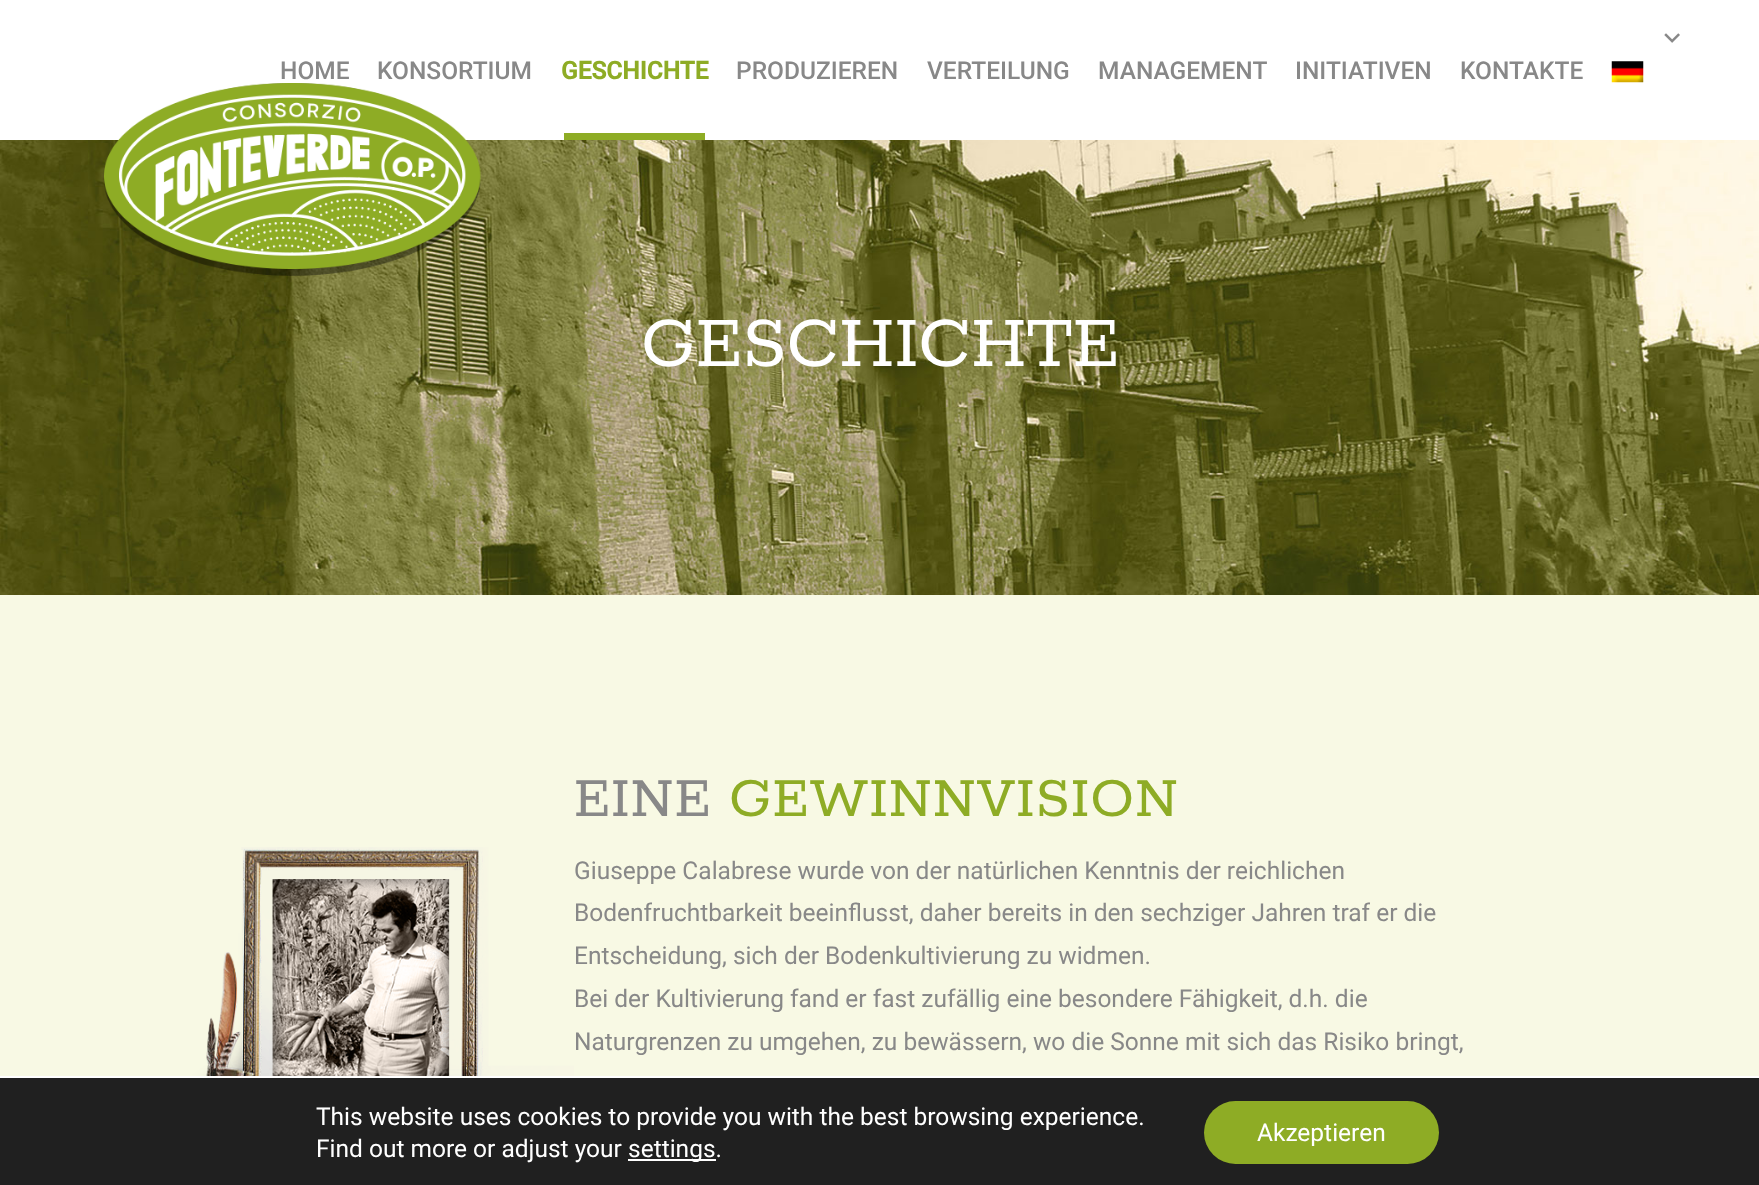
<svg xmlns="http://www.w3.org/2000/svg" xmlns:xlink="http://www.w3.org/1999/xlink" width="1759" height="1185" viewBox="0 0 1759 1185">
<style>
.cls-1{font:500 24.5px Roboto;fill:#888888}
.cls-2{font:bold 24.5px Roboto;fill:#8eac25}
.cls-3{font:78.75px Rokkitt;fill:#ffffff}
.cls-4{font:61.25px Rokkitt;letter-spacing:0.9px;fill:#888888}
.cls-5{font:61.25px Rokkitt;letter-spacing:0.9px;fill:#8eac25}
.cls-6{font:24.5px Roboto;fill:#888888}
.cls-7{font:24.5px Roboto;fill:#ffffff}
</style>
<rect width="100%" height="100%" fill="#f8f9e4"/>
<rect fill="#ffffff" x="0" y="0" width="1759" height="140"/>
<rect fill="#8eac25" x="564" y="133" width="141" height="7"/>
<image xlink:href="image0.png" x="1664" y="33" width="16" height="10"/>
<image xlink:href="image1.png" x="1611" y="61" width="33" height="22"/>
<image xlink:href="image3.png" x="0" y="140" width="1759" height="455"/>
<image xlink:href="image2.png" x="104" y="83" width="377" height="193"/>
<image xlink:href="image4.png" x="121" y="847" width="453" height="229"/>
<rect fill="#202020" x="0" y="1078" width="1759" height="107"/>
<rect fill="#ffffff" x="0" y="1076" width="1759" height="2"/>
<rect fill="#ffffff" x="628" y="1159" width="88" height="2"/>
<rect fill="#8eac25" x="1204" y="1101" width="235" height="63" rx="31.5"/>
<text class="cls-1" x="280" y="79">HOME</text>
<text class="cls-1" x="377" y="79">KONSORTIUM</text>
<text class="cls-2" x="561" y="79">GESCHICHTE</text>
<text class="cls-1" x="736" y="79">PRODUZIEREN</text>
<text class="cls-1" x="927" y="79">VERTEILUNG</text>
<text class="cls-1" x="1098" y="79">MANAGEMENT</text>
<text class="cls-1" x="1295" y="79">INITIATIVEN</text>
<text class="cls-1" x="1460" y="79">KONTAKTE</text>
<text class="cls-3" x="641" y="366">GESCHICHTE</text>
<text class="cls-4" x="574" y="816">EINE</text>
<text class="cls-5" x="729" y="816">GEWINNVISION</text>
<text class="cls-6"><tspan x="574" y="879">Giuseppe Calabrese wurde von der natürlichen Kenntnis der reichlichen</tspan><tspan x="574" y="921">Bodenfruchtbarkeit beeinflusst, daher bereits in den sechziger Jahren traf er die</tspan><tspan x="574" y="964">Entscheidung, sich der Bodenkultivierung zu widmen.</tspan><tspan x="574" y="1007">Bei der Kultivierung fand er fast zufällig eine besondere Fähigkeit, d.h. die</tspan><tspan x="574" y="1050">Naturgrenzen zu umgehen, zu bewässern, wo die Sonne mit sich das Risiko bringt,</tspan></text>
<text class="cls-7"><tspan x="316" y="1125">This website uses cookies to provide you with the best browsing experience.</tspan><tspan x="316" y="1157">Find out more or adjust your</tspan></text>
<text class="cls-7" x="628" y="1157">settings.</text>
<text class="cls-7" x="1257" y="1141">Akzeptieren</text>
</svg>
